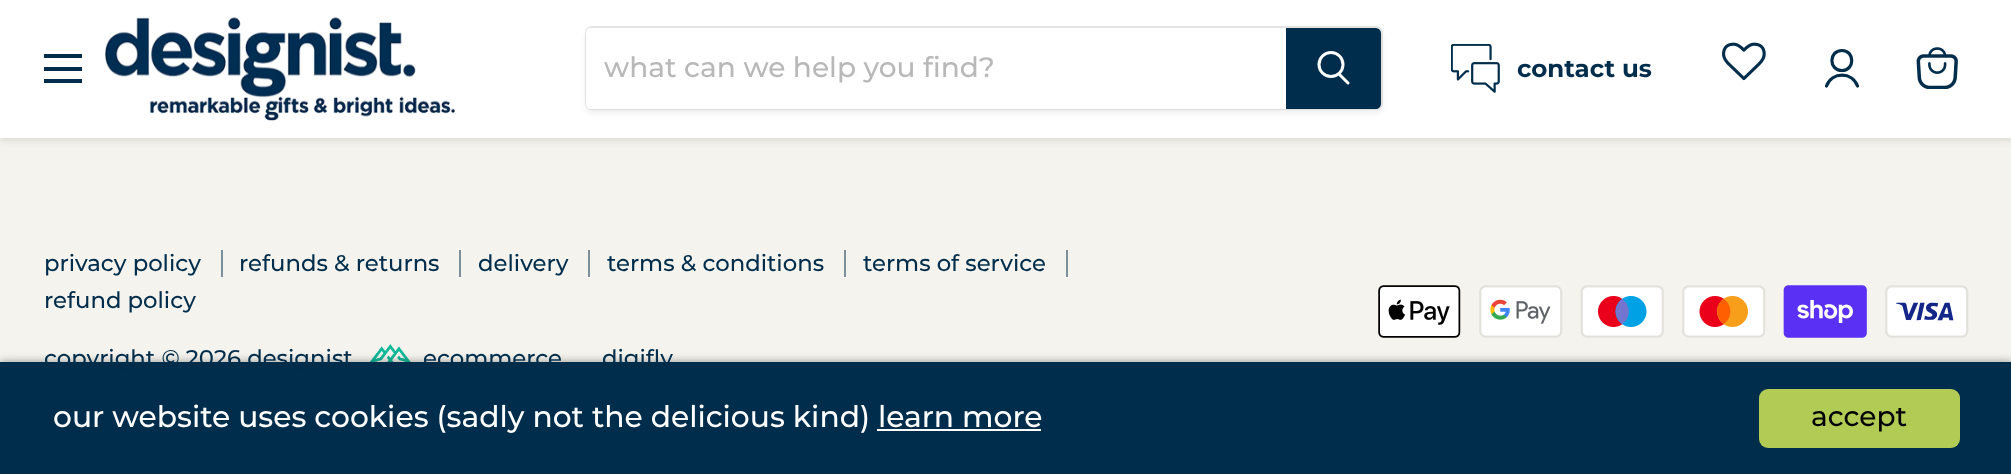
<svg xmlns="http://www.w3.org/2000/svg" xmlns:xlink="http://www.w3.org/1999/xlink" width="2011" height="474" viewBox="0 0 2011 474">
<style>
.cls-1{font:500 28px Montserrat;fill:#b8b8b8}
.cls-2{font:bold 24.5px Montserrat;fill:#002d4b}
.cls-3{font:500 22.75px Montserrat;fill:#002d4b}
.cls-4{font:500 29.75px Montserrat;fill:#ffffff}
.cls-5{font:500 28px Montserrat;fill:#000000}
</style>
<rect width="100%" height="100%" fill="#f5f3ed"/>
<rect fill="#808080" fill-opacity="0.25" filter="blur(3.5px)" x="0" y="2" width="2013" height="138"/>
<rect fill="#ffffff" x="0" y="0" width="2011" height="138"/>
<rect fill="#002d4b" x="44" y="54" width="38" height="4"/>
<rect fill="#002d4b" x="44" y="67" width="38" height="4"/>
<rect fill="#002d4b" x="44" y="79" width="38" height="4"/>
<image xlink:href="image0.png" x="105" y="17" width="350" height="104"/>
<rect fill="#808080" fill-opacity="0.11" filter="blur(2.5px)" x="585" y="30" width="798" height="84" rx="7"/>
<rect fill="none" stroke="#808080" stroke-opacity="0.2" stroke-width="2" x="586" y="27" width="796" height="82" rx="6"/>
<path fill="#ffffff" d="M591 28H1286V109H591C588 109 586 107 586 104V33C586 30 588 28 591 28Z"/>
<path fill="#002d4b" stroke="#002d4b" stroke-width="2" d="M1287 29H1376C1378 29 1380 31 1380 33V104C1380 106 1378 108 1376 108H1287Z"/>
<path fill="none" stroke="#ffffff" stroke-width="3" stroke-linecap="round" d="M1348 83L1339.5 74.5"/>
<circle fill="none" stroke="#ffffff" stroke-width="3" cx="1331" cy="64.5" r="12"/>
<image xlink:href="image1.png" x="1451" y="44" width="49" height="49"/>
<image xlink:href="image2.png" x="1722" y="42" width="44" height="39"/>
<path fill="none" stroke="#002d4b" stroke-width="3.2" stroke-linecap="round" stroke-linejoin="round" d="M1842 70.5C1855 70.5 1855 50.5 1842 50.5C1828.5 50.5 1828.5 70.5 1842 70.5ZM1857.5 86C1852 71.5 1832 71.5 1826.5 86"/>
<image xlink:href="image3.png" x="1916" y="47" width="42" height="42"/>
<rect fill="#7b909c" x="221" y="250" width="2" height="27"/>
<rect fill="#7b909c" x="459" y="250" width="2" height="27"/>
<rect fill="#7b909c" x="588" y="250" width="2" height="27"/>
<rect fill="#7b909c" x="844" y="250" width="2" height="27"/>
<rect fill="#7b909c" x="1066" y="250" width="2" height="27"/>
<image xlink:href="image4.png" x="369" y="344" width="42" height="18"/>
<image xlink:href="image5.png" x="1378" y="285" width="83" height="53"/>
<image xlink:href="image6.png" x="1479" y="285" width="84" height="53"/>
<image xlink:href="image7.png" x="1580" y="285" width="84" height="53"/>
<image xlink:href="image8.png" x="1682" y="285" width="84" height="53"/>
<image xlink:href="image9.png" x="1783" y="285" width="84" height="53"/>
<image xlink:href="image10.png" x="1885" y="285" width="84" height="53"/>
<rect fill="#000000" fill-opacity="0.4" filter="blur(4.5px)" x="0" y="362" width="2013" height="112"/>
<rect fill="#002d4b" x="0" y="362" width="2011" height="112"/>
<rect fill="#ffffff" x="877" y="429" width="164" height="2"/>
<rect fill="#b1cb55" x="1759" y="389" width="201" height="59" rx="9"/>
<text class="cls-1" x="604" y="77">what can we help you find?</text>
<text class="cls-2" x="1517" y="77">contact us</text>
<text class="cls-3" x="44" y="271">privacy policy</text>
<text class="cls-3" x="239" y="271">refunds &amp; returns</text>
<text class="cls-3" x="478" y="271">delivery</text>
<text class="cls-3" x="607" y="271">terms &amp; conditions</text>
<text class="cls-3" x="863" y="271">terms of service</text>
<text class="cls-3" x="44" y="308">refund policy</text>
<text class="cls-3" x="44" y="366">copyright © 2026 designist</text>
<text class="cls-3" x="423" y="366">ecommerce</text>
<text class="cls-3" x="602" y="366">digifly</text>
<text class="cls-4" x="53" y="427">our website uses cookies (sadly not the delicious kind) learn more</text>
<text class="cls-5" x="1811" y="426">accept</text>
</svg>
